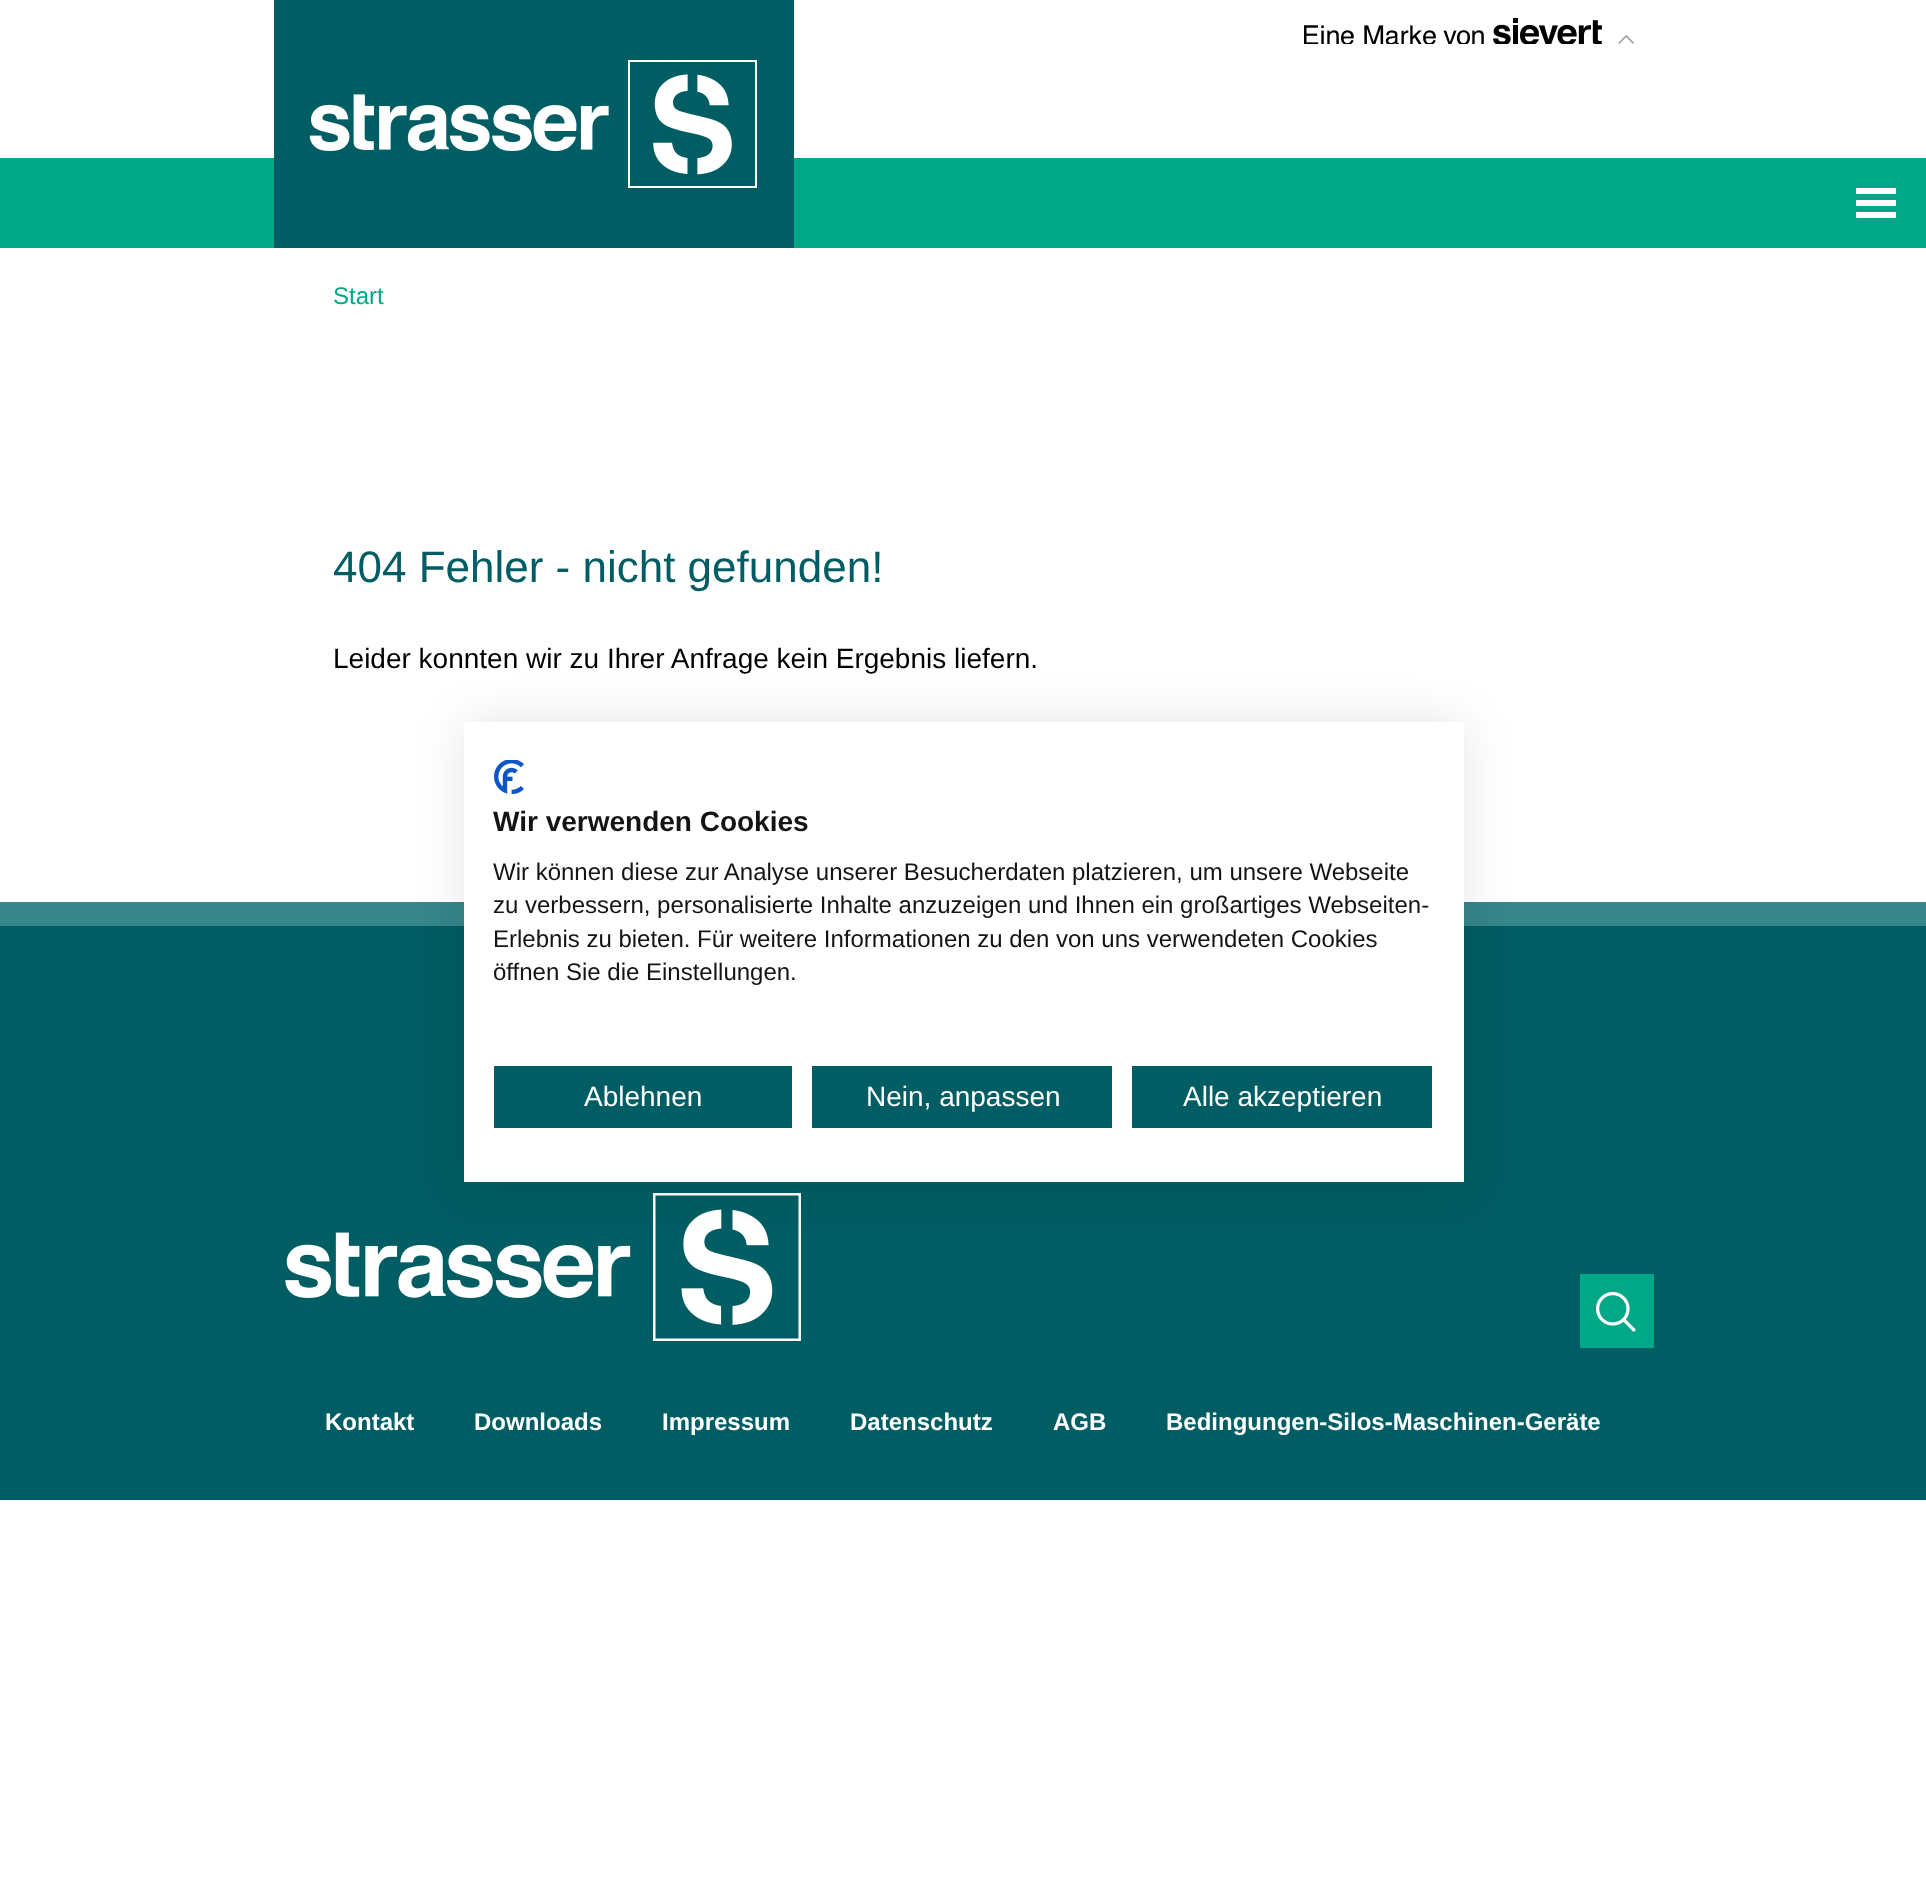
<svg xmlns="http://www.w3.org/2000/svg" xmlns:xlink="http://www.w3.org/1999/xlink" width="1926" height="1902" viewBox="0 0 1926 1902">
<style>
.cls-1{font:24px Liberation Sans;fill:#00a887}
.cls-2{font:44px Liberation Sans;fill:#005d63}
.cls-3{font:28px Liberation Sans;fill:#000000}
.cls-4{font:bold 28px Liberation Sans;fill:#141414}
.cls-5{font:24px Liberation Sans;fill:#141414}
.cls-6{font:28px Liberation Sans;fill:#ffffff}
.cls-7{font:bold 24px Liberation Sans;fill:#ffffff}
</style>
<defs>
<clipPath id="clip1"><rect x="1856" y="188" width="40" height="30"/></clipPath>
</defs>
<rect width="100%" height="100%" fill="#ffffff"/>
<rect fill="#00a887" x="0" y="158" width="1926" height="90"/>
<rect fill="#005d63" x="274" y="0" width="520" height="248"/>
<image xlink:href="image0.png" x="309" y="60" width="448" height="128"/>
<image xlink:href="image1.png" x="1304" y="18" width="330" height="26"/>
<g clip-path="url(#clip1)">
<path fill="none" stroke="#ffffff" stroke-width="6" stroke-linecap="round" d="M1857 191H1895M1857 215H1895M1857 203H1895"/>
</g>
<rect fill="#005d63" x="0" y="926" width="1926" height="574"/>
<rect fill="#36868a" x="0" y="902" width="1926" height="24"/>
<image xlink:href="image3.png" x="285" y="1193" width="516" height="148"/>
<rect fill="#000000" fill-opacity="0.1" filter="blur(24px)" x="464" y="722" width="1000" height="460"/>
<rect fill="#ffffff" x="464" y="722" width="1000" height="460"/>
<image xlink:href="image2.png" x="494" y="760" width="30" height="34"/>
<rect fill="#005d63" x="494" y="1066" width="298" height="62"/>
<rect fill="#005d63" x="812" y="1066" width="300" height="62"/>
<rect fill="#005d63" x="1132" y="1066" width="300" height="62"/>
<rect fill="#00a887" x="1580" y="1274" width="74" height="74"/>
<image xlink:href="image4.png" x="1596" y="1292" width="40" height="40"/>
<text class="cls-1" x="333" y="304">Start</text>
<text class="cls-2" x="333" y="582">404 Fehler - nicht gefunden!</text>
<text class="cls-3" x="333" y="668">Leider konnten wir zu Ihrer Anfrage kein Ergebnis liefern.</text>
<text class="cls-4" x="493" y="831">Wir verwenden Cookies</text>
<text class="cls-5"><tspan x="493" y="880">Wir können diese zur Analyse unserer Besucherdaten platzieren, um unsere Webseite</tspan><tspan x="493" y="913">zu verbessern, personalisierte Inhalte anzuzeigen und Ihnen ein großartiges Webseiten-</tspan><tspan x="493" y="947">Erlebnis zu bieten. Für weitere Informationen zu den von uns verwendeten Cookies</tspan><tspan x="493" y="980">öffnen Sie die Einstellungen.</tspan></text>
<text class="cls-6" x="584" y="1106">Ablehnen</text>
<text class="cls-6" x="866" y="1106">Nein, anpassen</text>
<text class="cls-6" x="1183" y="1106">Alle akzeptieren</text>
<text class="cls-7" x="325" y="1430">Kontakt</text>
<text class="cls-7" x="474" y="1430">Downloads</text>
<text class="cls-7" x="662" y="1430">Impressum</text>
<text class="cls-7" x="850" y="1430">Datenschutz</text>
<text class="cls-7" x="1053" y="1430">AGB</text>
<text class="cls-7" x="1166" y="1430">Bedingungen-Silos-Maschinen-Geräte</text>
</svg>
